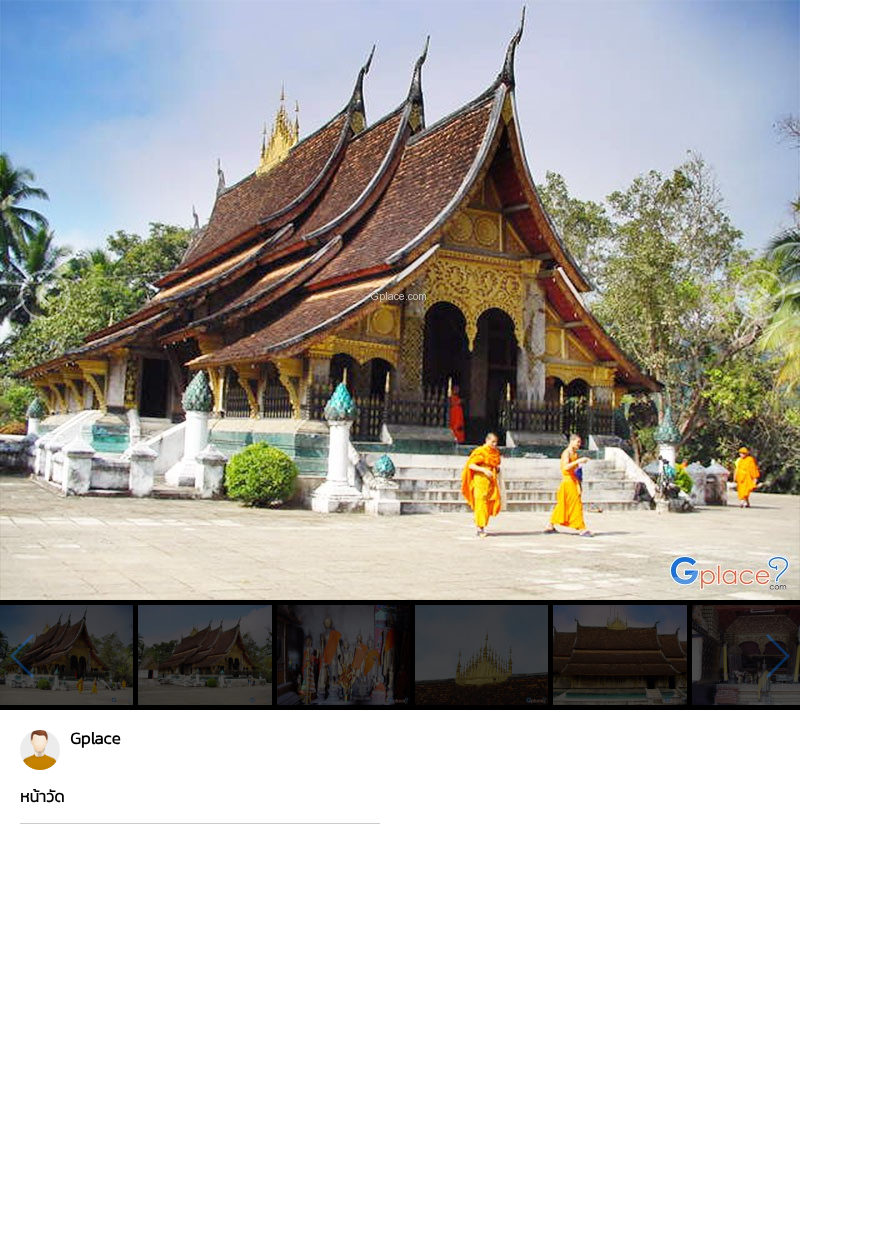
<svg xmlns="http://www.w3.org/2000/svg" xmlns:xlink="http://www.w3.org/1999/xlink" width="886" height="1248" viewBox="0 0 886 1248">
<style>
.cls-1{font:bold 17px Kanit;fill:#000000}
.cls-2{font:bold 16px Kanit;fill:#000000}
</style>
<rect width="100%" height="100%" fill="#ffffff"/>
<rect fill="#000000" x="0" y="600" width="800" height="110"/>
<image xlink:href="image0.png" x="0" y="0" width="800" height="600"/>
<image xlink:href="image1.png" x="20" y="270" width="50" height="50"/>
<image xlink:href="image2.png" x="735" y="270" width="50" height="50"/>
<image xlink:href="image3.png" x="0" y="605" width="133" height="100"/>
<image xlink:href="image4.png" x="138" y="605" width="134" height="100"/>
<image xlink:href="image5.png" x="277" y="605" width="133" height="100"/>
<image xlink:href="image6.png" x="415" y="605" width="133" height="100"/>
<image xlink:href="image7.png" x="553" y="605" width="134" height="100"/>
<image xlink:href="image8.png" x="692" y="605" width="108" height="100"/>
<path fill="#007aff" fill-opacity="0.3" d="M10 656L32 634L34 636L14 656L34 676L32 678Z"/>
<path fill="#007aff" fill-opacity="0.3" d="M790 656L768 678L766 676L786 656L766 636L768 634Z"/>
<image xlink:href="image9.png" x="20" y="730" width="40" height="40"/>
<rect fill="#cccccc" x="20" y="823" width="360" height="1"/>
<text class="cls-1" x="70" y="744">Gplace</text>
<text class="cls-2" x="20" y="802">หน้าวัด</text>
</svg>
